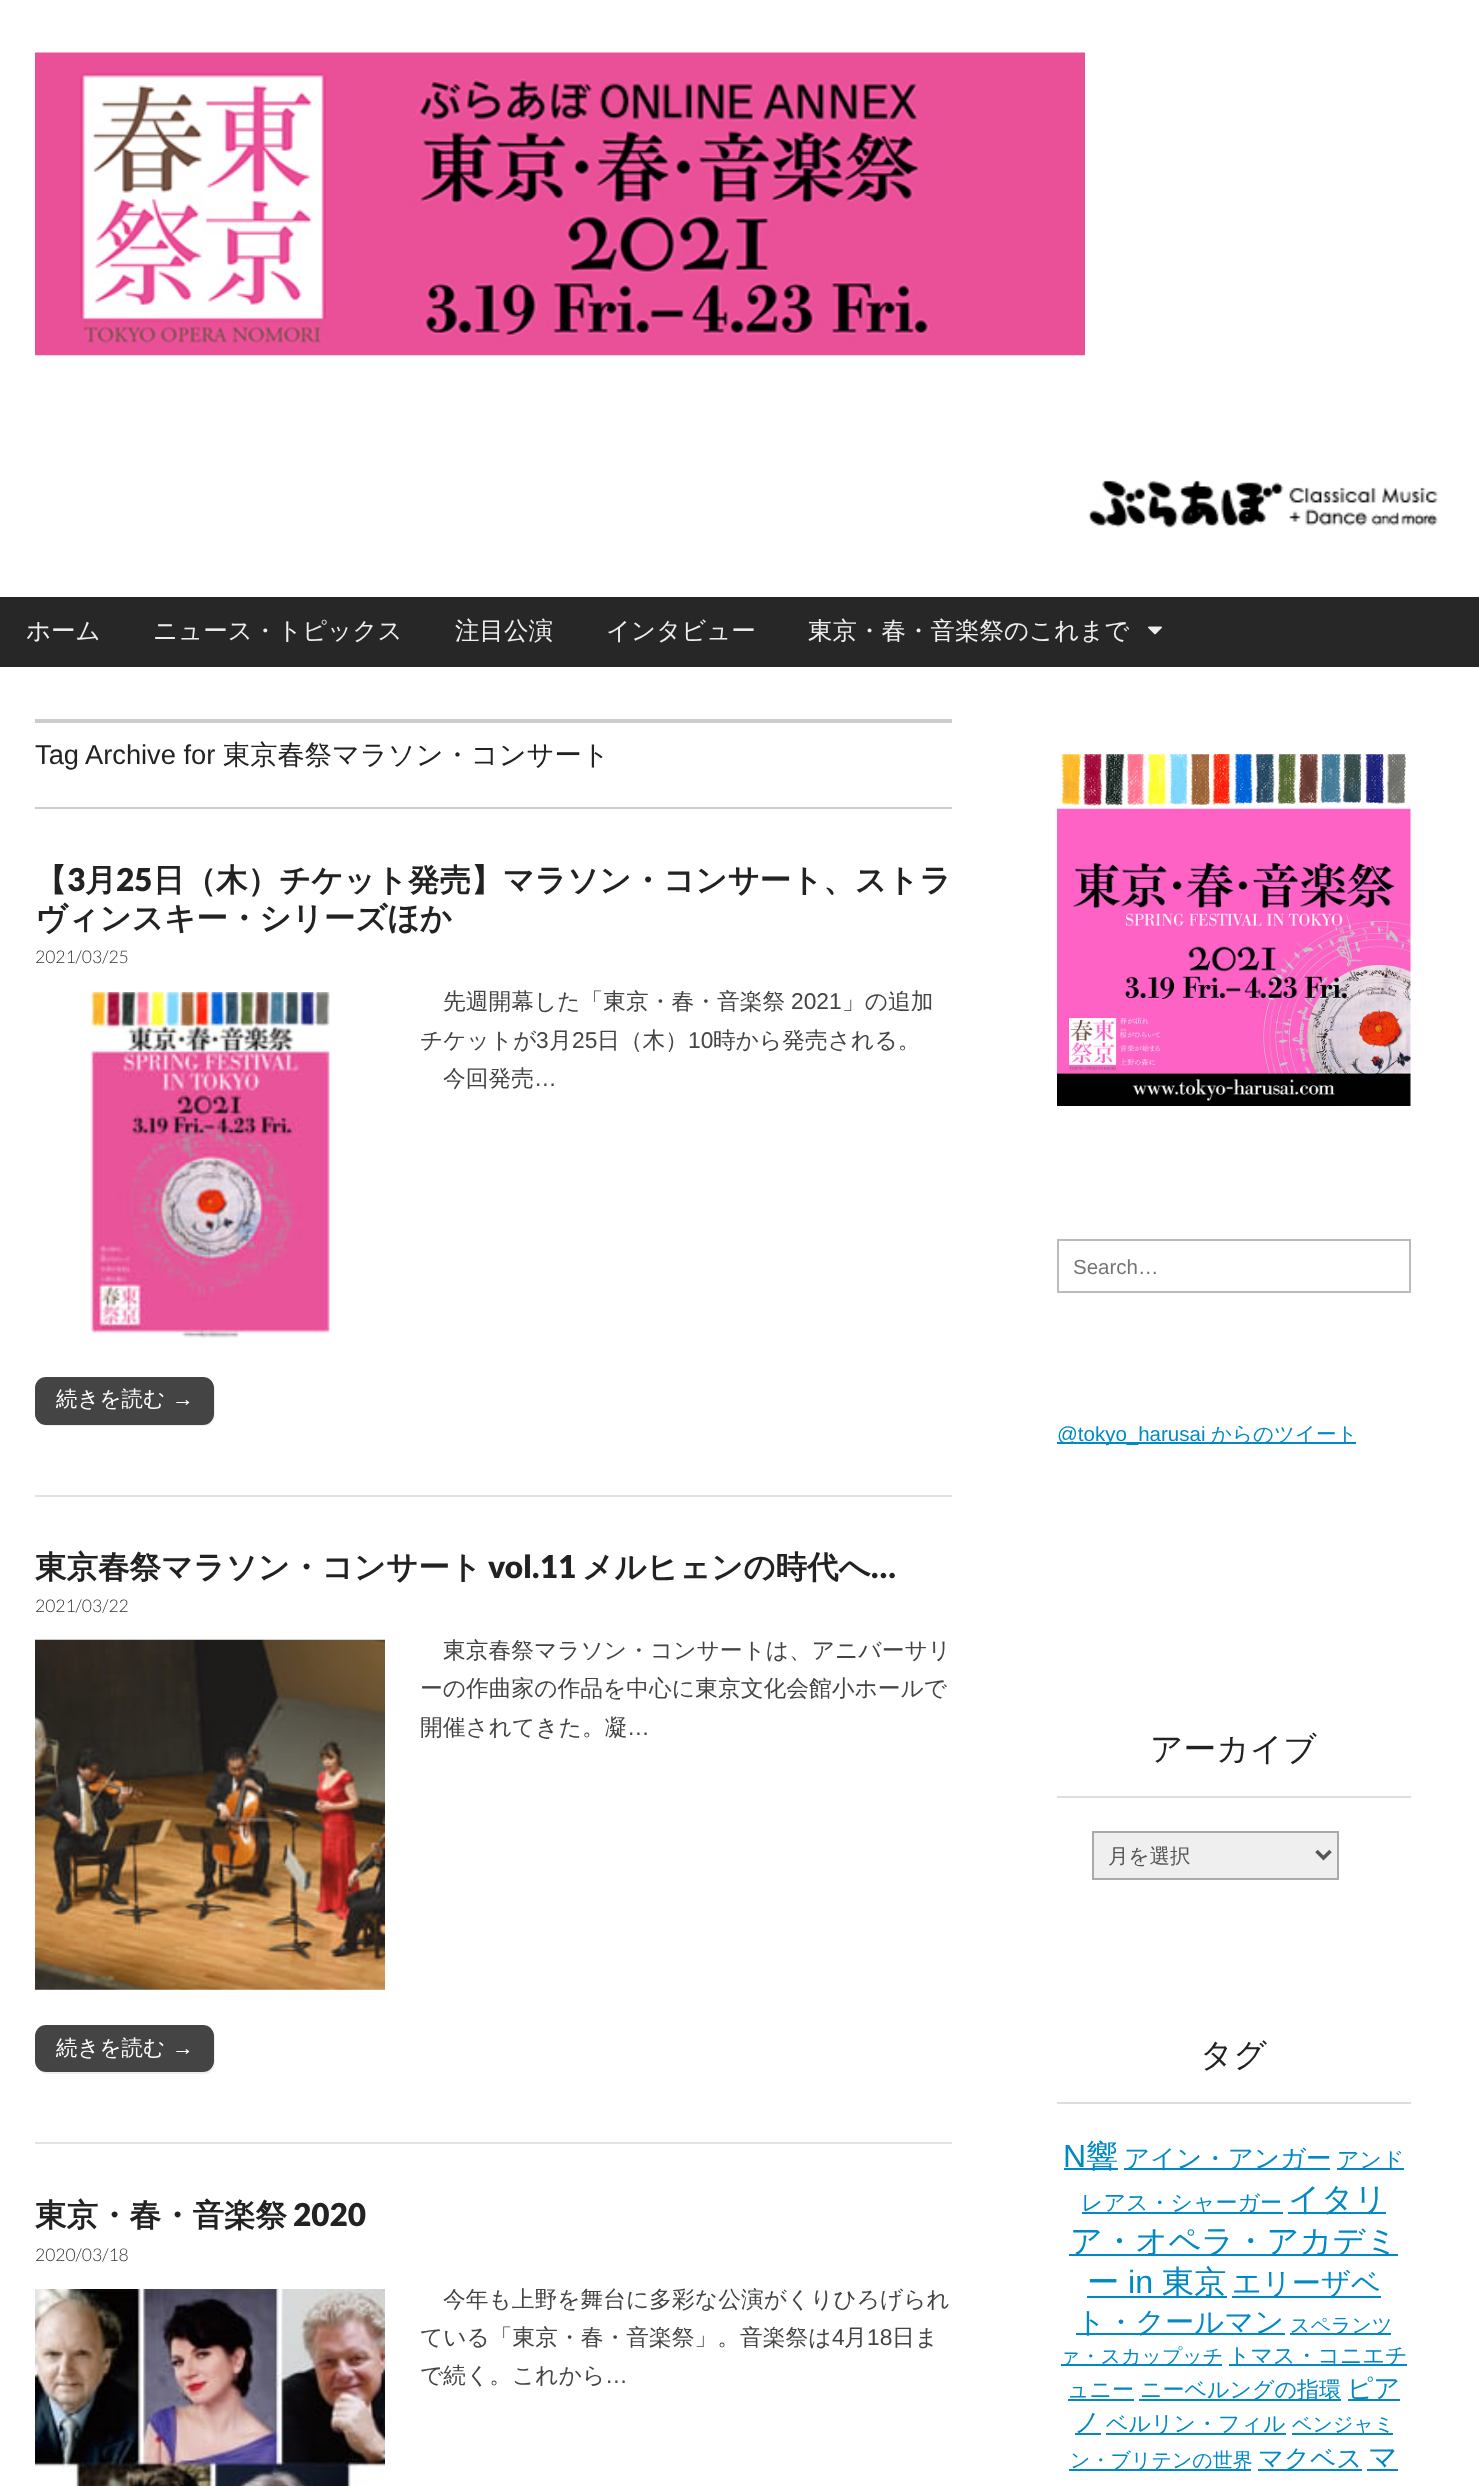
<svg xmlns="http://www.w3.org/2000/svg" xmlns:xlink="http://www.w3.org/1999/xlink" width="1479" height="2486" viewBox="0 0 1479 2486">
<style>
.cls-1{font:500 24.5px WenQuanYi Zen Hei;fill:#eeeeee}
.cls-2{font:27.25px Liberation Sans;fill:#222222}
.cls-3{font:500 27.25px WenQuanYi Zen Hei;fill:#222222}
.cls-4{font:bold 31.5px WenQuanYi Zen Hei;fill:#222222}
.cls-5{font:900 31.5px Lato;fill:#222222}
.cls-6{font:300 17.5px Lato;fill:#333333}
.cls-7{font:500 22.75px WenQuanYi Zen Hei;fill:#444444}
.cls-8{font:22.75px Liberation Sans;fill:#444444}
.cls-9{font:500 21.5px WenQuanYi Zen Hei;fill:#ffffff}
.cls-10{font:21.5px Liberation Sans;fill:#ffffff}
.cls-11{font:20.5px Liberation Sans;fill:#757575}
.cls-12{font:20.5px Liberation Sans;fill:#0089c4}
.cls-13{font:500 20.5px WenQuanYi Zen Hei;fill:#0089c4}
.cls-14{font:500 32.75px WenQuanYi Zen Hei;fill:#222222}
.cls-15{font:500 20.5px WenQuanYi Zen Hei;fill:#555555}
.cls-16{font:32px Liberation Sans;fill:#0089c4}
.cls-17{font:500 32px WenQuanYi Zen Hei;fill:#0089c4}
.cls-18{font:500 25.5px WenQuanYi Zen Hei;fill:#0089c4}
.cls-19{font:500 22px WenQuanYi Zen Hei;fill:#0089c4}
.cls-20{font:500 32.25px WenQuanYi Zen Hei;fill:#0089c4}
.cls-21{font:32.25px Liberation Sans;fill:#0089c4}
.cls-22{font:500 29.25px WenQuanYi Zen Hei;fill:#0089c4}
.cls-23{font:500 20px WenQuanYi Zen Hei;fill:#0089c4}
.cls-24{font:500 26px WenQuanYi Zen Hei;fill:#0089c4}
</style>
<rect width="100%" height="100%" fill="#ffffff"/>
<image xlink:href="image0.png" x="35" y="52" width="1050" height="304"/>
<image xlink:href="image1.png" x="1088" y="480" width="350" height="48"/>
<rect fill="#272727" x="0" y="597" width="1479" height="70"/>
<image xlink:href="image2.png" x="1148" y="626" width="14" height="9"/>
<rect fill="#cccccc" x="35" y="719" width="917" height="4"/>
<rect fill="#cccccc" x="35" y="807" width="917" height="2"/>
<rect fill="#e2e2e2" x="35" y="1495" width="917" height="2"/>
<path fill="#eeeeee" d="M41 1423C43 1425 45 1426 48 1426H204C210 1426 215 1421 215 1415V1390C215 1387 214 1385 212 1383C213 1384 214 1386 214 1388V1414C214 1420 209 1424 203 1424H46C44 1424 42 1424 41 1423Z"/>
<rect fill="#444444" x="35" y="1377" width="179" height="48" rx="11"/>
<image xlink:href="image3.png" x="90" y="992" width="240" height="347"/>
<rect fill="#e2e2e2" x="35" y="2142" width="917" height="2"/>
<path fill="#eeeeee" d="M40 2070C42 2073 45 2074 48 2074H204C210 2074 215 2069 215 2063V2038C215 2035 214 2033 213 2031L214 2035V2062C214 2067 209 2072 203 2072H46C43 2072 41 2071 40 2070Z"/>
<rect fill="#444444" x="35" y="2025" width="179" height="47" rx="11"/>
<image xlink:href="image4.png" x="35" y="1639" width="350" height="351"/>
<image xlink:href="image5.png" x="35" y="2289" width="350" height="197"/>
<image xlink:href="image6.png" x="1057" y="754" width="354" height="352"/>
<rect fill="none" stroke="#bbbbbb" stroke-width="2" x="1058" y="1240" width="352" height="52"/>
<rect fill="#0089c4" x="1057" y="1442" width="299" height="2"/>
<rect fill="#dddddd" x="1057" y="1796" width="354" height="2"/>
<rect fill="#efefef" stroke="#aaaaaa" stroke-width="2" x="1093" y="1832" width="245" height="47"/>
<path fill="none" stroke="#555555" stroke-width="3.5" d="M1316.5 1851L1323.5 1858L1330.5 1851"/>
<rect fill="#dddddd" x="1057" y="2102" width="354" height="2"/>
<rect fill="#0089c4" x="1064" y="2168" width="54" height="2"/>
<rect fill="#0089c4" x="1124" y="2168" width="206" height="2"/>
<rect fill="#0089c4" x="1337" y="2168" width="67" height="2"/>
<rect fill="#0089c4" x="1082" y="2212" width="201" height="2"/>
<rect fill="#0089c4" x="1288" y="2212" width="98" height="2"/>
<rect fill="#0089c4" x="1069" y="2254" width="329" height="2"/>
<rect fill="#0089c4" x="1087" y="2296" width="140" height="2"/>
<rect fill="#0089c4" x="1232" y="2296" width="149" height="2"/>
<rect fill="#0089c4" x="1076" y="2333" width="209" height="2"/>
<rect fill="#0089c4" x="1290" y="2333" width="101" height="2"/>
<rect fill="#0089c4" x="1061" y="2364" width="161" height="2"/>
<rect fill="#0089c4" x="1229" y="2364" width="178" height="2"/>
<rect fill="#0089c4" x="1068" y="2399" width="66" height="2"/>
<rect fill="#0089c4" x="1139" y="2399" width="202" height="2"/>
<rect fill="#0089c4" x="1348" y="2399" width="52" height="2"/>
<rect fill="#0089c4" x="1075" y="2433" width="26" height="2"/>
<rect fill="#0089c4" x="1106" y="2433" width="180" height="2"/>
<rect fill="#0089c4" x="1292" y="2433" width="101" height="2"/>
<rect fill="#0089c4" x="1069" y="2469" width="182" height="2"/>
<rect fill="#0089c4" x="1258" y="2469" width="104" height="2"/>
<rect fill="#0089c4" x="1367" y="2469" width="31" height="2"/>
<text class="cls-1" x="26" y="639">ホーム</text>
<text class="cls-1" x="153" y="639">ニュース・トピックス</text>
<text class="cls-1" x="455" y="639">注目公演</text>
<text class="cls-1" x="606" y="639">インタビュー</text>
<text class="cls-1" x="808" y="639">東京・春・音楽祭のこれまで</text>
<text class="cls-2" x="35" y="764">Tag Archive for</text>
<text class="cls-3" x="223" y="764">東京春祭マラソン・コンサート</text>
<text class="cls-4" x="35" y="891">【</text>
<text class="cls-5" x="67" y="891">3</text>
<text class="cls-4" x="85" y="891">月</text>
<text class="cls-5" x="116" y="891">25</text>
<text class="cls-4" x="153" y="891">日（木）チケット発売】マラソン・コンサート、ストラ</text>
<text class="cls-4" x="35" y="929">ヴィンスキー・シリーズほか</text>
<text class="cls-6" x="35" y="963">2021/03/25</text>
<text class="cls-7" x="443" y="1009">先週開幕した「東京・春・音楽祭</text>
<text class="cls-8" x="791" y="1009">2021</text>
<text class="cls-7" x="842" y="1009">」の追加</text>
<text class="cls-7" x="420" y="1048">チケットが</text>
<text class="cls-8" x="536" y="1048">3</text>
<text class="cls-7" x="549" y="1048">月</text>
<text class="cls-8" x="572" y="1048">25</text>
<text class="cls-7" x="597" y="1048">日（木）</text>
<text class="cls-8" x="688" y="1048">10</text>
<text class="cls-7" x="713" y="1048">時から発売される。</text>
<text class="cls-7" x="443" y="1086">今回発売</text>
<text class="cls-8" x="534" y="1086">…</text>
<text class="cls-9" x="56" y="1406">続きを読む</text>
<text class="cls-10" x="172" y="1406">→</text>
<text class="cls-4" x="35" y="1578">東京春祭マラソン・コンサート</text>
<text class="cls-5" x="488" y="1578">vol.11</text>
<text class="cls-4" x="582" y="1578">メルヒェンの時代へ</text>
<text class="cls-5" x="871" y="1578">…</text>
<text class="cls-6" x="35" y="1612">2021/03/22</text>
<text class="cls-7" x="443" y="1658">東京春祭マラソン・コンサートは、アニバーサリ</text>
<text class="cls-7"><tspan x="420" y="1696">ーの作曲家の作品を中心に東京文化会館小ホールで</tspan><tspan x="420" y="1735">開催されてきた。凝</tspan></text>
<text class="cls-8" x="627" y="1735">…</text>
<text class="cls-9" x="56" y="2055">続きを読む</text>
<text class="cls-10" x="172" y="2055">→</text>
<text class="cls-4" x="35" y="2226">東京・春・音楽祭</text>
<text class="cls-5" x="293" y="2226">2020</text>
<text class="cls-6" x="35" y="2261">2020/03/18</text>
<text class="cls-7" x="443" y="2307">今年も上野を舞台に多彩な公演がくりひろげられ</text>
<text class="cls-7" x="420" y="2345">ている「東京・春・音楽祭」。音楽祭は</text>
<text class="cls-8" x="832" y="2345">4</text>
<text class="cls-7" x="844" y="2345">月</text>
<text class="cls-8" x="867" y="2345">18</text>
<text class="cls-7" x="892" y="2345">日ま</text>
<text class="cls-7" x="420" y="2383">で続く。これから</text>
<text class="cls-8" x="605" y="2383">…</text>
<text class="cls-11" x="1073" y="1274">Search…</text>
<text class="cls-12" x="1057" y="1441">@tokyo_harusai</text>
<text class="cls-13" x="1211" y="1441">からのツイート</text>
<text class="cls-14" x="1150" y="1760">アーカイブ</text>
<text class="cls-15" x="1108" y="1863">月を選択</text>
<text class="cls-14" x="1200" y="2066">タグ</text>
<text class="cls-16" x="1063" y="2167">N</text>
<text class="cls-17" x="1086" y="2167">響</text>
<text class="cls-18" x="1124" y="2167">アイン・アンガー</text>
<text class="cls-19" x="1337" y="2167">アンド</text>
<text class="cls-19" x="1081" y="2210">レアス・シャーガー</text>
<text class="cls-20" x="1288" y="2210">イタリ</text>
<text class="cls-20" x="1070" y="2252">ア・オペラ・アカデミ</text>
<text class="cls-20" x="1087" y="2293">ー</text>
<text class="cls-21" x="1128" y="2293">in</text>
<text class="cls-20" x="1162" y="2293">東京</text>
<text class="cls-22" x="1232" y="2293">エリーザベ</text>
<text class="cls-22" x="1076" y="2332">ト・クールマン</text>
<text class="cls-23" x="1290" y="2332">スペランツ</text>
<text class="cls-23" x="1060" y="2363">ァ・スカップッチ</text>
<text class="cls-19" x="1228" y="2363">トマス・コニエチ</text>
<text class="cls-19" x="1067" y="2397">ュニー</text>
<text class="cls-19" x="1140" y="2397">ニーベルングの指環</text>
<text class="cls-24" x="1347" y="2397">ピア</text>
<text class="cls-24" x="1074" y="2431">ノ</text>
<text class="cls-19" x="1106" y="2431">ベルリン・フィル</text>
<text class="cls-23" x="1292" y="2431">ベンジャミ</text>
<text class="cls-23" x="1070" y="2467">ン・ブリテンの世界</text>
<text class="cls-18" x="1258" y="2467">マクベス</text>
<text class="cls-22" x="1368" y="2467">マ</text>
</svg>
